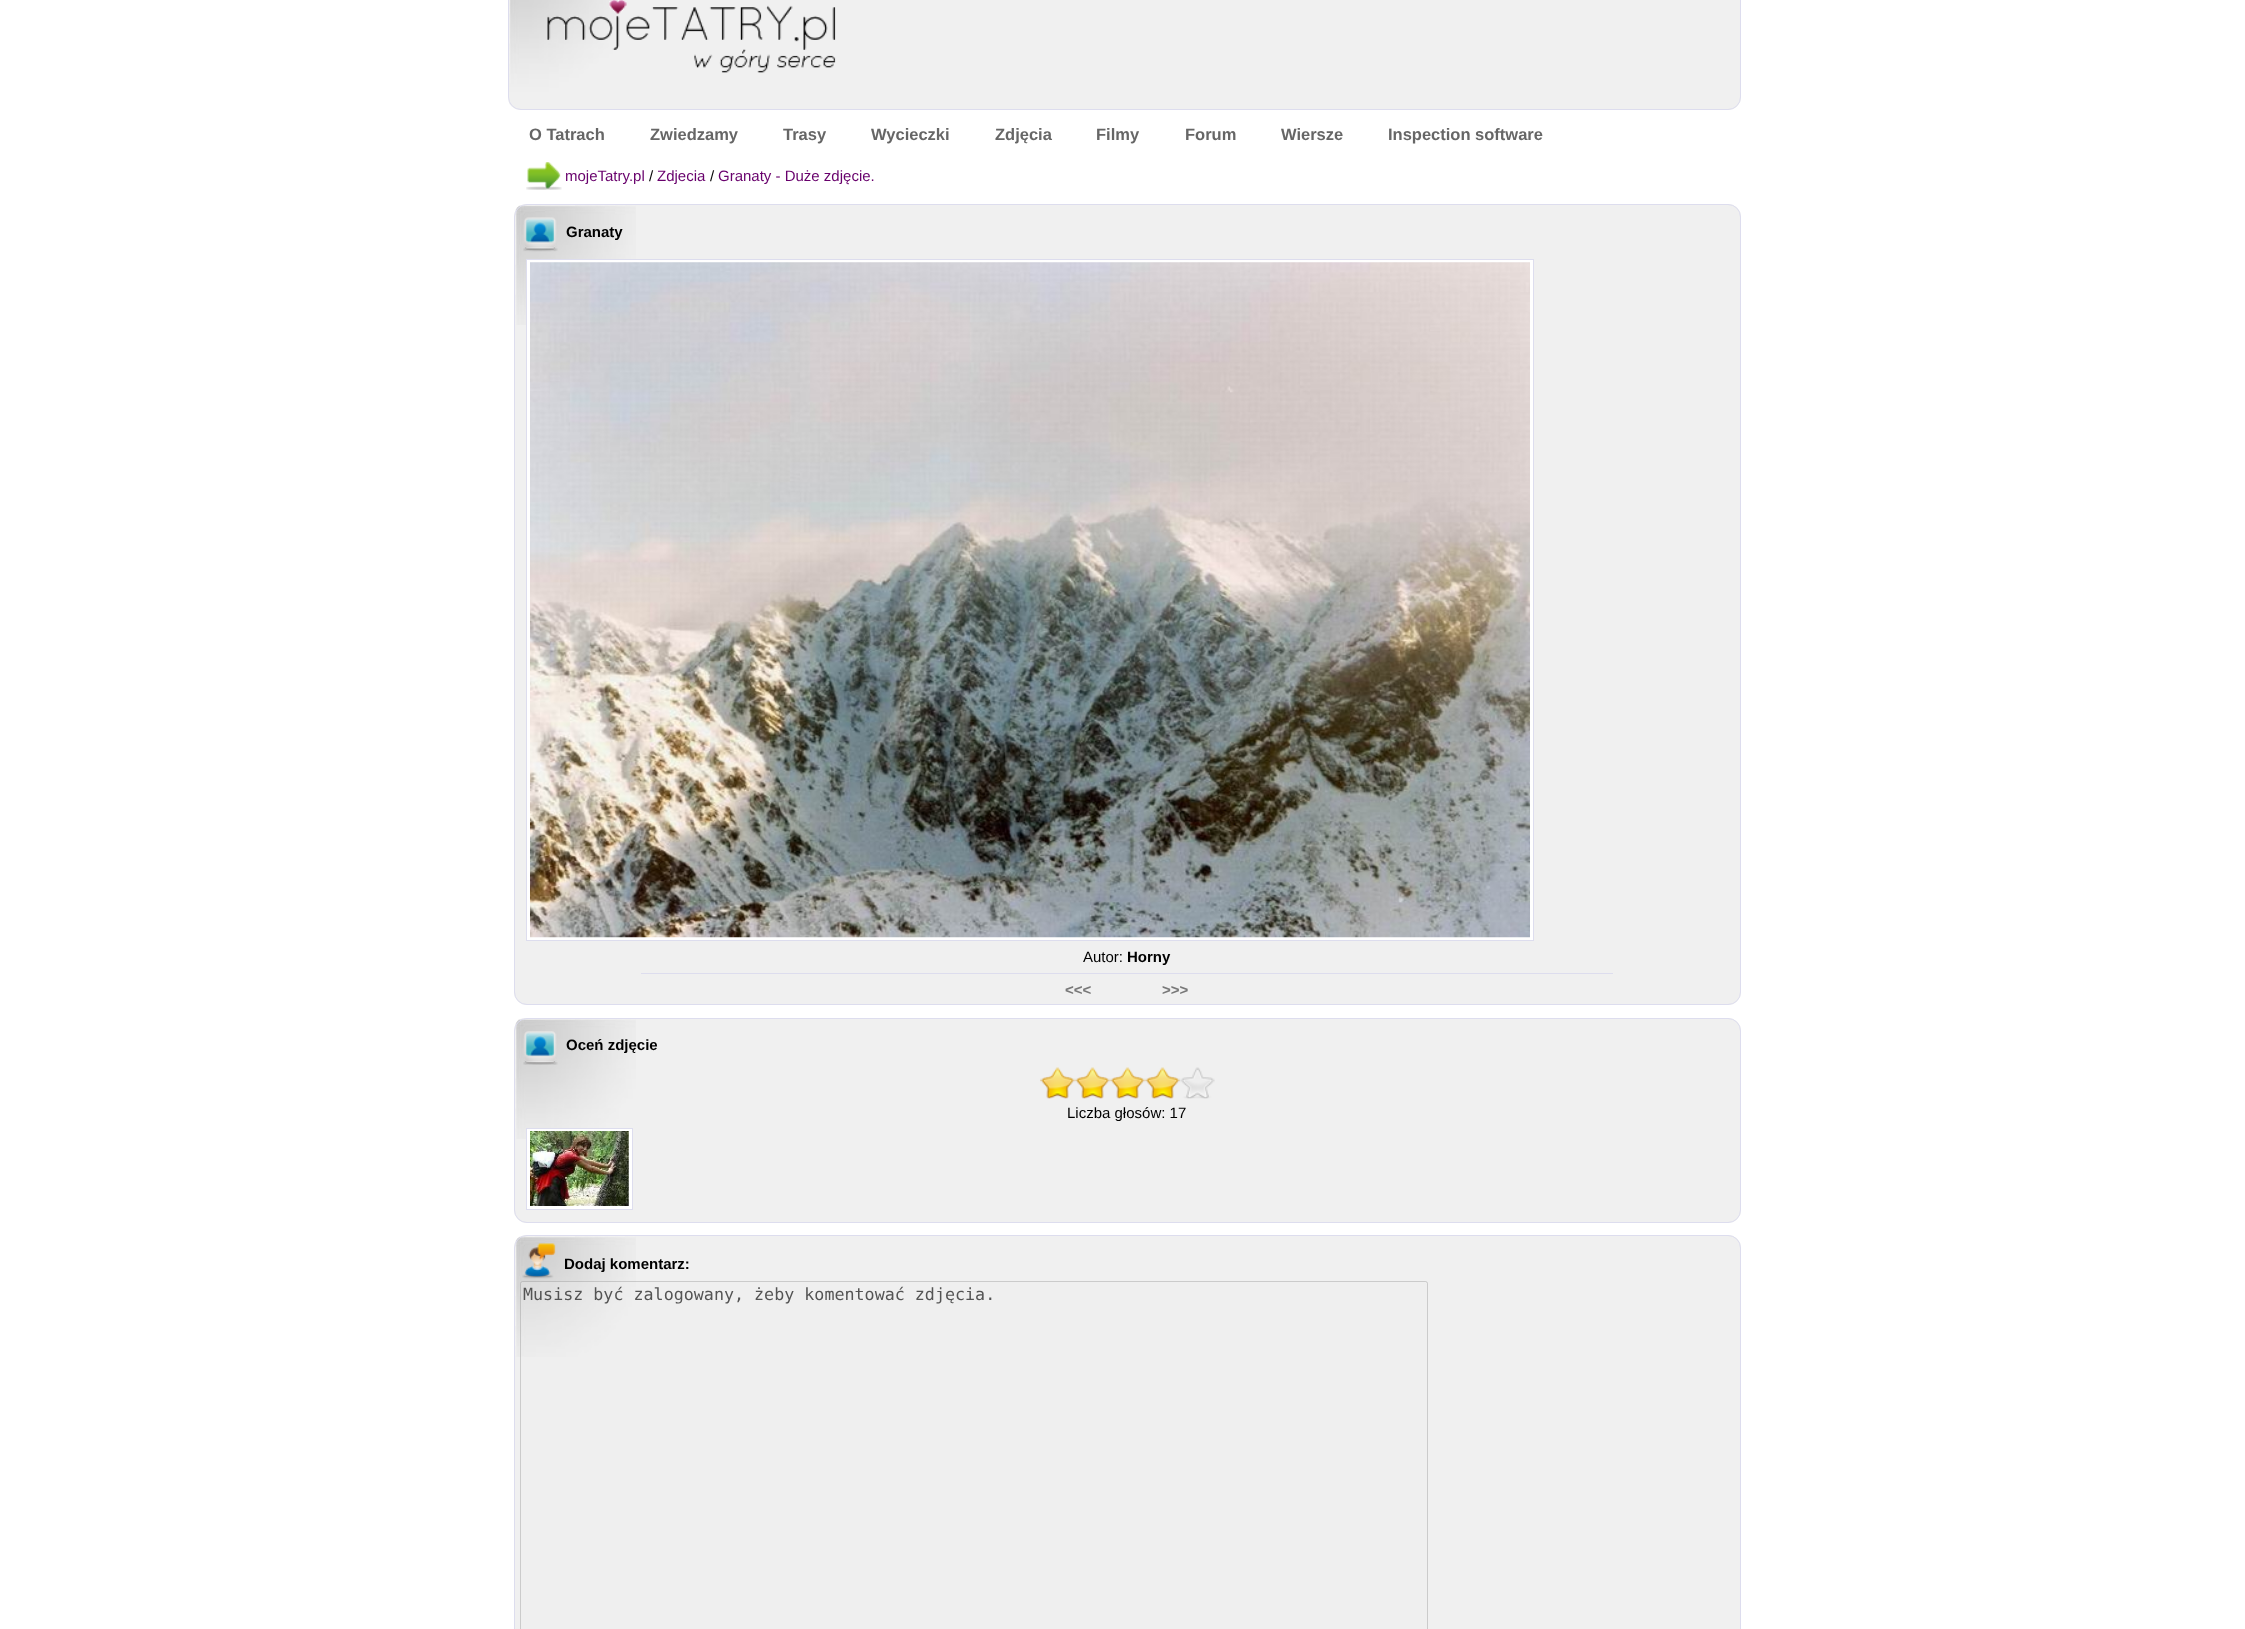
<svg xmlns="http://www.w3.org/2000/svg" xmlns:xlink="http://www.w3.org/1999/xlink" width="2245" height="1629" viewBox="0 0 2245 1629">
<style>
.cls-1{font:bold 16.5px Liberation Sans;fill:#666666}
.cls-2{font:15px Liberation Sans;fill:#68006c}
.cls-3{font:15px Liberation Sans;fill:#000000}
.cls-4{font:bold 15px Liberation Sans;fill:#000000}
.cls-5{font:bold 15px Liberation Sans;fill:#787878}
.cls-6{font:16.7px DejaVu Sans Mono;fill:#545454}
</style>
<rect width="100%" height="100%" fill="#ffffff"/>
<rect fill="#f0f0f0" x="508" y="-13" width="1233" height="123" rx="13"/>
<image xlink:href="image0.png" x="509" y="0" width="110" height="109"/>
<rect fill="none" stroke="#ddddee" x="508.5" y="-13.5" width="1232" height="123" rx="12.5"/>
<image xlink:href="image1.png" x="547" y="0" width="289" height="73"/>
<image xlink:href="image2.png" x="526" y="162" width="36" height="28"/>
<rect fill="#f0f0f0" x="514" y="204" width="1227" height="801" rx="13"/>
<image xlink:href="image3.png" x="515" y="205" width="121" height="120"/>
<rect fill="none" stroke="#ddddee" x="514.5" y="204.5" width="1226" height="800" rx="12.5"/>
<image xlink:href="image4.png" x="523" y="217" width="35" height="35"/>
<rect fill="#ffffff" stroke="#ddddee" x="526.5" y="259.5" width="1007" height="681"/>
<image xlink:href="image5.png" x="530" y="262" width="1000" height="676"/>
<rect fill="#ddddee" x="641" y="973" width="972" height="1"/>
<rect fill="#f0f0f0" x="514" y="1018" width="1227" height="205" rx="13"/>
<image xlink:href="image6.png" x="515" y="1018" width="121" height="121"/>
<rect fill="none" stroke="#ddddee" x="514.5" y="1018.5" width="1226" height="204" rx="12.5"/>
<image xlink:href="image7.png" x="523" y="1031" width="35" height="34"/>
<image xlink:href="image8.png" x="1040" y="1067" width="35" height="32"/>
<image xlink:href="image9.png" x="1075" y="1067" width="35" height="32"/>
<image xlink:href="image10.png" x="1110" y="1067" width="35" height="32"/>
<image xlink:href="image10.png" x="1145" y="1067" width="35" height="32"/>
<image xlink:href="image11.png" x="1180" y="1067" width="35" height="32"/>
<rect fill="#ffffff" stroke="#ddddee" x="526.5" y="1128.5" width="106" height="81"/>
<image xlink:href="image12.png" x="530" y="1131" width="99" height="75"/>
<rect fill="#f0f0f0" x="514" y="1235" width="1227" height="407" rx="13"/>
<image xlink:href="image13.png" x="515" y="1236" width="121" height="121"/>
<rect fill="none" stroke="#ddddee" x="514.5" y="1235.5" width="1226" height="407" rx="12.5"/>
<image xlink:href="image14.png" x="522" y="1243" width="34" height="36"/>
<rect fill="#efefef" fill-opacity="0.3" x="520" y="1281" width="908" height="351" rx="2.5"/>
<rect fill="none" stroke="#767676" stroke-opacity="0.3" x="520.5" y="1281.5" width="907" height="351" rx="2"/>
<text class="cls-1" x="529" y="140">O Tatrach</text>
<text class="cls-1" x="650" y="140">Zwiedzamy</text>
<text class="cls-1" x="783" y="140">Trasy</text>
<text class="cls-1" x="871" y="140">Wycieczki</text>
<text class="cls-1" x="995" y="140">Zdjęcia</text>
<text class="cls-1" x="1096" y="140">Filmy</text>
<text class="cls-1" x="1185" y="140">Forum</text>
<text class="cls-1" x="1281" y="140">Wiersze</text>
<text class="cls-1" x="1388" y="140">Inspection software</text>
<text class="cls-2" x="565" y="181">mojeTatry.pl</text>
<text class="cls-3" x="649" y="181">/</text>
<text class="cls-2" x="657" y="181">Zdjecia</text>
<text class="cls-3" x="710" y="181">/</text>
<text class="cls-2" x="718" y="181">Granaty - Duże zdjęcie.</text>
<text class="cls-4" x="566" y="237">Granaty</text>
<text class="cls-3" x="1083" y="962">Autor:</text>
<text class="cls-4" x="1127" y="962">Horny</text>
<text class="cls-5" x="1065" y="995">&lt;&lt;&lt;</text>
<text class="cls-5" x="1162" y="995">&gt;&gt;&gt;</text>
<text class="cls-4" x="566" y="1050">Oceń zdjęcie</text>
<text class="cls-3" x="1067" y="1118">Liczba głosów: 17</text>
<text class="cls-4" x="564" y="1269">Dodaj komentarz:</text>
<text class="cls-6" x="523" y="1300">Musisz być zalogowany, żeby komentować zdjęcia.</text>
</svg>
